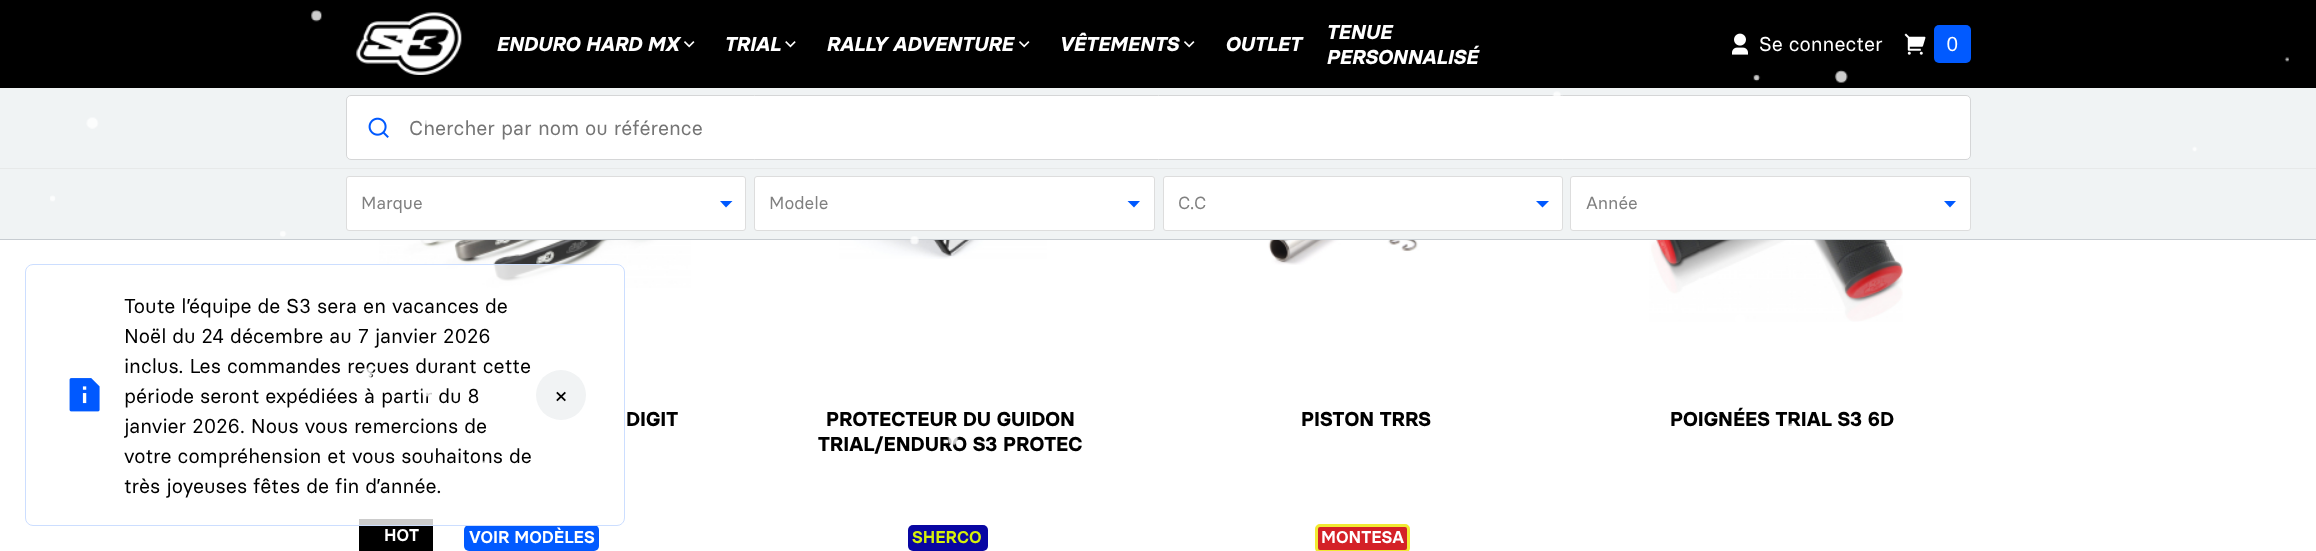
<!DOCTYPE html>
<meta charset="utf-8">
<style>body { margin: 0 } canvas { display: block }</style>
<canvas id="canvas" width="2316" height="551"></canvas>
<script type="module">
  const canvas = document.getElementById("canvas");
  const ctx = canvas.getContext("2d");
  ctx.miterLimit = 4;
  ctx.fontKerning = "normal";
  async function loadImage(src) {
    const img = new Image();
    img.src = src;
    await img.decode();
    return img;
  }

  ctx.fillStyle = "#ffffff";
  ctx.fillRect(0, 0, 2316, 551);
  ctx.fillStyle = "#000000";
  ctx.fillRect(0, 0, 2316, 88);
  ctx.drawImage(await loadImage("img2.png"), 356, 12, 106, 63);
  ctx.font = "italic bold 20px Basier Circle";
  ctx.fillStyle = "#ffffff";
  ctx.fillText("ENDURO HARD MX", 496, 51);
  ctx.drawImage(await loadImage("img3.png"), 684, 41, 11, 7);
  ctx.fillText("TRIAL", 724, 51);
  ctx.drawImage(await loadImage("img4.png"), 785, 41, 11, 7);
  ctx.fillText("RALLY ADVENTURE", 826, 51);
  ctx.drawImage(await loadImage("img3.png"), 1019, 41, 11, 7);
  ctx.fillText("VÊTEMENTS", 1059, 51);
  ctx.drawImage(await loadImage("img3.png"), 1184, 41, 11, 7);
  ctx.fillText("OUTLET", 1225, 51);
  ctx.fillText("TENUE", 1326, 39);
  ctx.fillText("PERSONNALISÉ", 1326, 64);
  ctx.drawImage(await loadImage("img5.png"), 1732, 33, 16, 22);
  ctx.font = "20px Basier Circle";
  ctx.fillText("Se connecter", 1759, 51);
  ctx.drawImage(await loadImage("img6.png"), 1904, 33, 22, 22);
  ctx.fillStyle = "#015aff";
  ctx.beginPath();
  ctx.roundRect(1934, 25, 37, 38, 5);
  ctx.fill();
  ctx.fillStyle = "#ffffff";
  ctx.fillText("0", 1946, 51);
  ctx.fillStyle = "#f0f3f4";
  ctx.fillRect(0, 88, 2316, 80);
  ctx.fillStyle = "#ffffff";
  ctx.beginPath();
  ctx.roundRect(346.5, 95.5, 1624, 64, 4.5);
  ctx.fill();
  ctx.strokeStyle = "#d5d6d7";
  ctx.stroke();
  ctx.drawImage(await loadImage("img7.png"), 368, 117, 21, 21);
  ctx.fillStyle = "#757575";
  ctx.fillText("Chercher par nom ou référence", 409, 135);
  ctx.fillStyle = "#f0f3f4";
  ctx.fillRect(0, 169, 2316, 70);
  ctx.fillStyle = "#e7e9e9";
  ctx.fillRect(0, 168, 2316, 1);
  ctx.fillStyle = "#c7ccd1";
  ctx.fillRect(0, 239, 2316, 1);
  ctx.fillStyle = "#ffffff";
  ctx.beginPath();
  ctx.roundRect(346.5, 176.5, 399, 54, 2.5);
  ctx.fill();
  ctx.strokeStyle = "#dddddd";
  ctx.stroke();
  ctx.font = "17.5px Basier Circle";
  ctx.fillStyle = "#808080";
  ctx.fillText("Marque", 361, 209);
  ctx.fillStyle = "#0059ff";
  ctx.beginPath();
  ctx.moveTo(720, 201);
  ctx.lineTo(732.5, 201);
  ctx.lineTo(726, 207.5);
  ctx.closePath();
  ctx.fill();
  ctx.fillStyle = "#ffffff";
  ctx.beginPath();
  ctx.roundRect(754.5, 176.5, 400, 54, 2.5);
  ctx.fill();
  ctx.stroke();
  ctx.fillStyle = "#808080";
  ctx.fillText("Modele", 769, 209);
  ctx.fillStyle = "#0059ff";
  ctx.beginPath();
  ctx.moveTo(1127.5, 201);
  ctx.lineTo(1140, 201);
  ctx.lineTo(1134, 207.5);
  ctx.closePath();
  ctx.fill();
  ctx.fillStyle = "#ffffff";
  ctx.beginPath();
  ctx.roundRect(1163.5, 176.5, 399, 54, 2.5);
  ctx.fill();
  ctx.stroke();
  ctx.fillStyle = "#808080";
  ctx.fillText("C.C", 1178, 209);
  ctx.fillStyle = "#0059ff";
  ctx.beginPath();
  ctx.moveTo(1536, 201);
  ctx.lineTo(1549, 201);
  ctx.lineTo(1542.5, 207.5);
  ctx.closePath();
  ctx.fill();
  ctx.fillStyle = "#ffffff";
  ctx.beginPath();
  ctx.roundRect(1570.5, 176.5, 400, 54, 2.5);
  ctx.fill();
  ctx.stroke();
  ctx.fillStyle = "#808080";
  ctx.fillText("Année", 1586, 209);
  ctx.fillStyle = "#0059ff";
  ctx.beginPath();
  ctx.moveTo(1944, 201);
  ctx.lineTo(1956, 201);
  ctx.lineTo(1950, 207.5);
  ctx.closePath();
  ctx.fill();
  ctx.drawImage(await loadImage("img9.png"), 378, 240, 314, 48);
  ctx.fillStyle = "#000000";
  ctx.fillRect(359, 519, 74, 32);
  ctx.fillStyle = "#015aff";
  ctx.beginPath();
  ctx.roundRect(464, 525, 135, 26, 5);
  ctx.fill();
  ctx.fillStyle = "rgba(255, 255, 255, 0.8)";
  ctx.beginPath();
  ctx.roundRect(25.5, 264.5, 599, 261, 7.5);
  ctx.fill();
  ctx.strokeStyle = "#ccdeff";
  ctx.stroke();
  ctx.drawImage(await loadImage("img8.png"), 69, 378, 31, 34);
  ctx.font = "20px Basier Circle";
  ctx.fillStyle = "#000000";
  ctx.fillText("Toute l’équipe de S3 sera en vacances de", 124, 313);
  ctx.fillText("Noël du 24 décembre au 7 janvier 2026", 124, 343);
  ctx.fillText("inclus. Les commandes reçues durant cette", 124, 373);
  ctx.fillText("période seront expédiées à partir du 8", 124, 403);
  ctx.fillText("janvier 2026. Nous vous remercions de", 124, 433);
  ctx.fillText("votre compréhension et vous souhaitons de", 124, 463);
  ctx.fillStyle = "#f1f3f4";
  ctx.beginPath();
  ctx.arc(561, 395, 25, 0, Math.PI * 2);
  ctx.fill();
  ctx.font = "24px Basier Circle";
  ctx.fillStyle = "#000000";
  ctx.fillText("×", 556, 404);
  ctx.font = "bold 20px Basier Circle";
  ctx.fillText("DIGIT", 626, 426);
  ctx.drawImage(await loadImage("img10.png"), 839, 240, 208, 19);
  ctx.fillText("PROTECTEUR DU GUIDON", 826, 426);
  ctx.fillText("TRIAL/ENDURO S3 PROTEC", 818, 451);
  ctx.drawImage(await loadImage("img11.png"), 1268, 240, 180, 25);
  ctx.fillText("PISTON TRRS", 1301, 426);
  ctx.drawImage(await loadImage("img12.png"), 1649, 240, 254, 82);
  ctx.fillText("POIGNÉES TRIAL S3 6D", 1670, 426);
  ctx.drawImage(await loadImage("img1.png"), 50, 10, 2239, 453);
  ctx.font = "20px Basier Circle";
  ctx.fillText("très joyeuses fêtes de fin d’année.", 124, 493);
  ctx.font = "600 17px Basier Circle";
  ctx.fillStyle = "#ffffff";
  ctx.fillText("HOT", 384, 541);
  ctx.fillText("VOIR MODÈLES", 469, 543);
  ctx.fillStyle = "#0806a2";
  ctx.beginPath();
  ctx.roundRect(908, 525, 80, 26, 5);
  ctx.fill();
  ctx.fillStyle = "#d6f109";
  ctx.fillText("SHERCO", 912, 543);
  ctx.fillStyle = "#d42127";
  ctx.beginPath();
  ctx.roundRect(1316, 525, 93, 26, 5);
  ctx.fill();
  ctx.beginPath();
  ctx.roundRect(1316.5, 525.5, 92, 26, 3.5);
  ctx.strokeStyle = "#f1ea32";
  ctx.lineWidth = 3;
  ctx.stroke();
  ctx.fillStyle = "#ffffff";
  ctx.fillText("MONTESA", 1321, 543);
</script>
